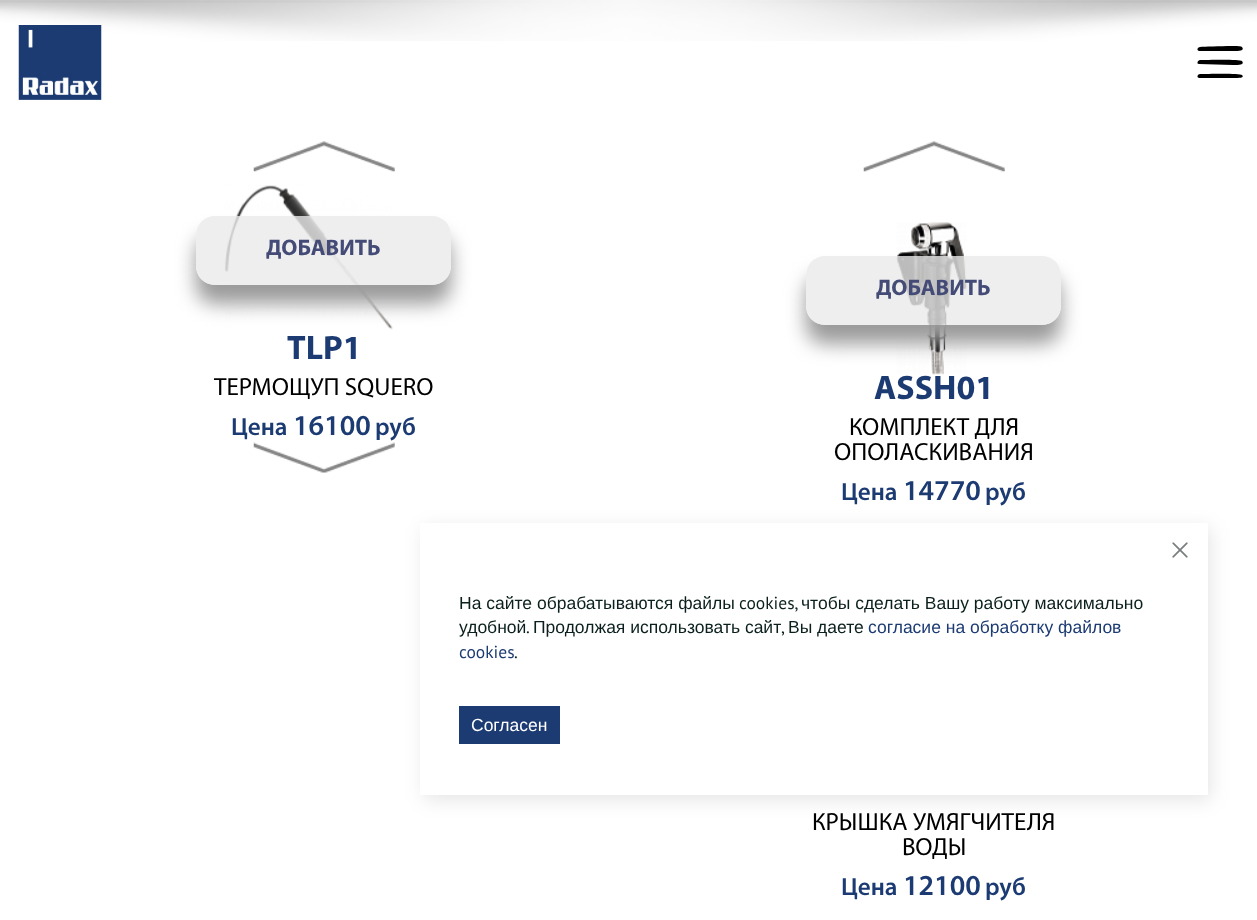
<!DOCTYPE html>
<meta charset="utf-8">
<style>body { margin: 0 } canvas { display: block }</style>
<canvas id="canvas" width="1257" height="920"></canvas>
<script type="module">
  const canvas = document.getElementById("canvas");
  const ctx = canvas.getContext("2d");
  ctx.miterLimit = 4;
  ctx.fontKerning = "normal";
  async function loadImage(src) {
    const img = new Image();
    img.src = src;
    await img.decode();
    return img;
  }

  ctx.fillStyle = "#ffffff";
  ctx.fillRect(0, 0, 1257, 920);
  ctx.drawImage(await loadImage("img2.png"), 18, 25, 84, 75);
  ctx.drawImage(await loadImage("img1.png"), 0, 0, 1257, 41);
  ctx.fillStyle = "#000000";
  ctx.beginPath();
  ctx.moveTo(1200, 47);
  ctx.bezierCurveTo(1206, 47, 1240, 45, 1242, 47);
  ctx.bezierCurveTo(1245, 51, 1239, 51, 1233, 51);
  ctx.lineTo(1199, 51);
  ctx.bezierCurveTo(1196, 50, 1198, 47, 1200, 47);
  ctx.closePath();
  ctx.moveTo(1200, 60);
  ctx.bezierCurveTo(1206, 60, 1240, 59, 1242, 61);
  ctx.bezierCurveTo(1245, 65, 1239, 65, 1233, 65);
  ctx.lineTo(1199, 64);
  ctx.bezierCurveTo(1196, 64, 1198, 60, 1200, 60);
  ctx.closePath();
  ctx.moveTo(1200, 74);
  ctx.bezierCurveTo(1206, 74, 1240, 73, 1242, 75);
  ctx.bezierCurveTo(1245, 78, 1239, 78, 1233, 78);
  ctx.lineTo(1199, 78);
  ctx.bezierCurveTo(1196, 77, 1198, 74, 1200, 74);
  ctx.closePath();
  ctx.fill();
  ctx.drawImage(await loadImage("img3.png"), 253, 141, 142, 31);
  ctx.drawImage(await loadImage("img4.png"), 224, 185, 169, 145);
  ctx.save();
  ctx.beginPath();
  ctx.moveTo(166, 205);
  ctx.lineTo(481, 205);
  ctx.lineTo(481, 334);
  ctx.lineTo(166, 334);
  ctx.closePath();
  ctx.moveTo(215, 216);
  ctx.lineTo(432, 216);
  ctx.bezierCurveTo(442.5, 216, 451, 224.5, 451, 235);
  ctx.lineTo(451, 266);
  ctx.bezierCurveTo(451, 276.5, 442.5, 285, 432, 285);
  ctx.lineTo(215, 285);
  ctx.bezierCurveTo(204.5, 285, 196, 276.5, 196, 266);
  ctx.lineTo(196, 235);
  ctx.bezierCurveTo(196, 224.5, 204.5, 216, 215, 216);
  ctx.closePath();
  ctx.clip("evenodd");
  ctx.fillStyle = "#9a9a9a";
  ctx.filter = "blur(9.5px)";
  ctx.beginPath();
  ctx.roundRect(196, 235, 255, 69, 19);
  ctx.fill();
  ctx.filter = "none";
  ctx.restore();
  ctx.fillStyle = "rgba(234, 234, 234, 0.8)";
  ctx.beginPath();
  ctx.roundRect(196, 216, 255, 69, 19);
  ctx.fill();
  ctx.font = "bold 22.5px Myriad";
  ctx.fillStyle = "#434b76";
  ctx.fillText("ДОБАВИТЬ", 266, 255);
  ctx.font = "bold 34px Myriad";
  ctx.fillStyle = "#1c3b73";
  ctx.fillText("TLP1", 287, 359);
  ctx.font = "25px Myriad";
  ctx.fillStyle = "#000000";
  ctx.fillText("ТЕРМОЩУП SQUERO", 214, 395);
  ctx.font = "600 25px Myriad";
  ctx.fillStyle = "#1c3b73";
  ctx.fillText("Цена", 231, 435);
  ctx.font = "600 29px Myriad";
  ctx.fillText("16100", 293, 435);
  ctx.font = "600 25px Myriad";
  ctx.fillText("руб", 375, 435);
  ctx.drawImage(await loadImage("img5.png"), 253, 442, 142, 31);
  ctx.drawImage(await loadImage("img6.png"), 863, 141, 142, 31);
  ctx.drawImage(await loadImage("img7.png"), 896, 222, 71, 153);
  ctx.save();
  ctx.beginPath();
  ctx.moveTo(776, 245);
  ctx.lineTo(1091, 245);
  ctx.lineTo(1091, 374);
  ctx.lineTo(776, 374);
  ctx.closePath();
  ctx.moveTo(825, 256);
  ctx.lineTo(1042, 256);
  ctx.bezierCurveTo(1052.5, 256, 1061, 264.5, 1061, 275);
  ctx.lineTo(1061, 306);
  ctx.bezierCurveTo(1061, 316.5, 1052.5, 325, 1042, 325);
  ctx.lineTo(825, 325);
  ctx.bezierCurveTo(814.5, 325, 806, 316.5, 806, 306);
  ctx.lineTo(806, 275);
  ctx.bezierCurveTo(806, 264.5, 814.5, 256, 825, 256);
  ctx.closePath();
  ctx.clip("evenodd");
  ctx.fillStyle = "#9a9a9a";
  ctx.filter = "blur(9.5px)";
  ctx.beginPath();
  ctx.roundRect(806, 275, 255, 69, 19);
  ctx.fill();
  ctx.filter = "none";
  ctx.restore();
  ctx.fillStyle = "rgba(234, 234, 234, 0.8)";
  ctx.beginPath();
  ctx.roundRect(806, 256, 255, 69, 19);
  ctx.fill();
  ctx.font = "bold 22.5px Myriad";
  ctx.fillStyle = "#434b76";
  ctx.fillText("ДОБАВИТЬ", 876, 295);
  ctx.font = "bold 34px Myriad";
  ctx.fillStyle = "#1c3b73";
  ctx.fillText("ASSH01", 874, 399);
  ctx.font = "25px Myriad";
  ctx.fillStyle = "#000000";
  ctx.fillText("КОМПЛЕКТ ДЛЯ", 849, 435);
  ctx.fillText("ОПОЛАСКИВАНИЯ", 834, 460);
  ctx.font = "600 25px Myriad";
  ctx.fillStyle = "#1c3b73";
  ctx.fillText("Цена", 841, 500);
  ctx.font = "600 29px Myriad";
  ctx.fillText("14770", 903, 500);
  ctx.font = "600 25px Myriad";
  ctx.fillText("руб", 985, 500);
  ctx.font = "25px Myriad";
  ctx.fillStyle = "#000000";
  ctx.fillText("КРЫШКА УМЯГЧИТЕЛЯ", 812, 830);
  ctx.fillText("ВОДЫ", 902, 855);
  ctx.font = "600 25px Myriad";
  ctx.fillStyle = "#1c3b73";
  ctx.fillText("Цена", 841, 895);
  ctx.font = "600 29px Myriad";
  ctx.fillText("12100", 903, 895);
  ctx.font = "600 25px Myriad";
  ctx.fillText("руб", 985, 895);
  ctx.fillStyle = "rgba(0, 0, 0, 0.1)";
  ctx.filter = "blur(9.5px)";
  ctx.beginPath();
  ctx.rect(424, 528, 787, 272);
  ctx.fill();
  ctx.filter = "none";
  ctx.fillStyle = "#ffffff";
  ctx.fillRect(420, 523, 788, 272);
  ctx.drawImage(await loadImage("img8.png"), 1172, 542, 16, 16);
  ctx.font = "17.5px Liberation Sans";
  ctx.fillStyle = "#0b201d";
  ctx.fillText("На сайте обрабатываются файлы", 459, 609);
  ctx.font = "17.5px PT Sans";
  ctx.fillText("cookies,", 739, 609);
  ctx.font = "17.5px Liberation Sans";
  ctx.fillText("чтобы сделать Вашу работу максимально", 801, 609);
  ctx.fillText("удобной", 459, 633);
  ctx.font = "17.5px PT Sans";
  ctx.fillText(".", 526, 633);
  ctx.font = "17.5px Liberation Sans";
  ctx.fillText("Продолжая использовать сайт", 533, 633);
  ctx.font = "17.5px PT Sans";
  ctx.fillText(",", 781, 633);
  ctx.font = "17.5px Liberation Sans";
  ctx.fillText("Вы даете", 788, 633);
  ctx.fillStyle = "#1c3b73";
  ctx.fillText("согласие на обработку файлов", 868, 633);
  ctx.font = "17.5px PT Sans";
  ctx.fillText("cookies", 459, 658);
  ctx.fillStyle = "#0b201d";
  ctx.fillText(".", 514, 658);
  ctx.fillStyle = "#1c3b73";
  ctx.fillRect(459, 706, 101, 38);
  ctx.font = "17.5px Liberation Sans";
  ctx.fillStyle = "#ffffff";
  ctx.fillText("Согласен", 471, 731);
</script>
